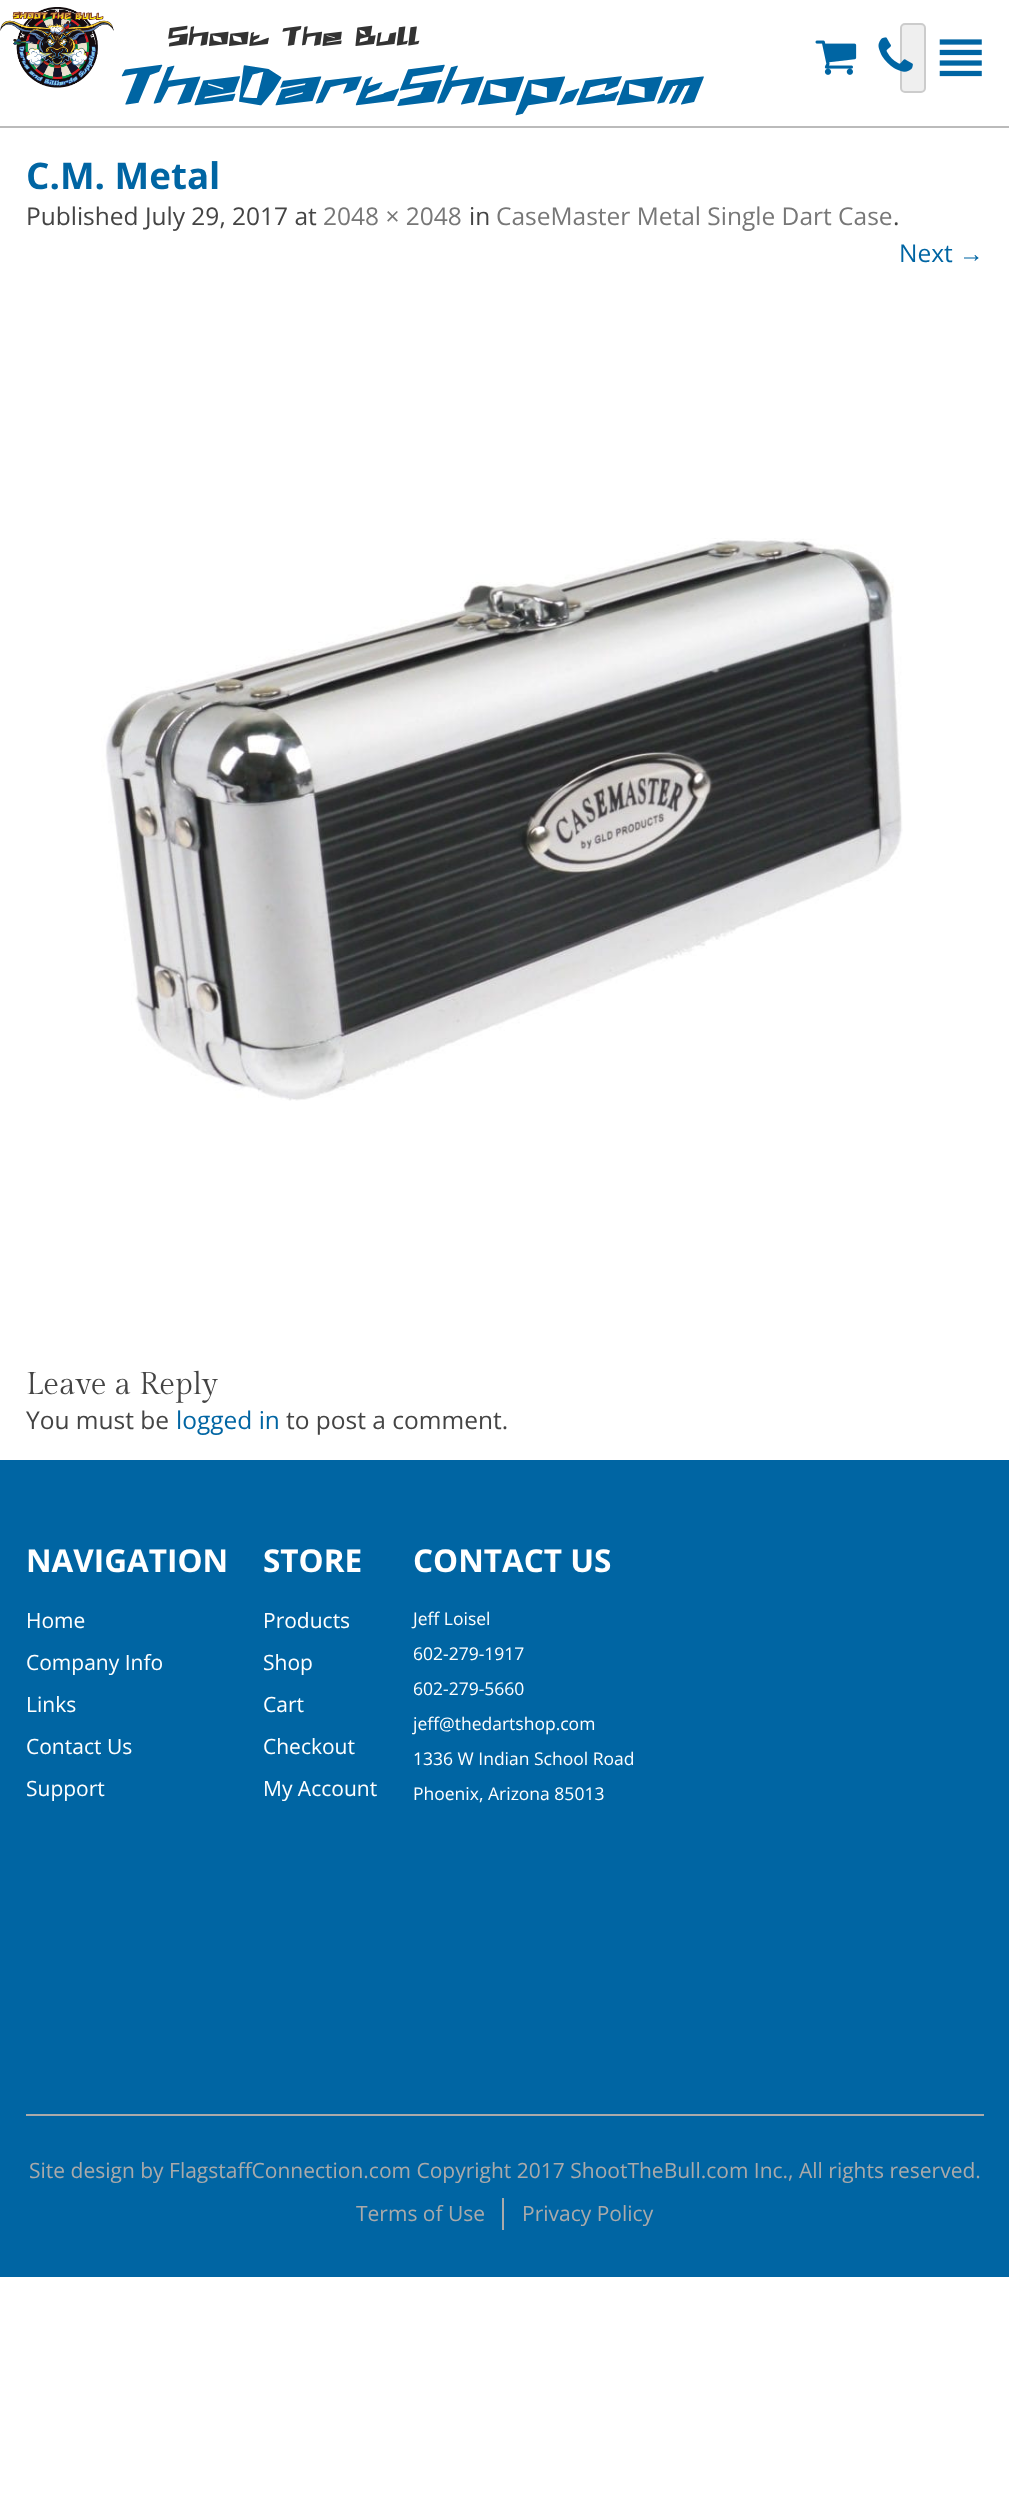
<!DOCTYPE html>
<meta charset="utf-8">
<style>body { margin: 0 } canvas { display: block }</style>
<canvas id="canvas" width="1009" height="2505"></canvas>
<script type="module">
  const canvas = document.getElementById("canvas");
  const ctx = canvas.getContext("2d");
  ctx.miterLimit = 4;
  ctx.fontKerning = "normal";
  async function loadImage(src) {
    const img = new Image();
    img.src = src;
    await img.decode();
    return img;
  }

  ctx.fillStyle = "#ffffff";
  ctx.fillRect(0, 0, 1009, 2505);
  ctx.fillStyle = "#bbbbbb";
  ctx.fillRect(0, 126, 1009, 2);
  ctx.drawImage(await loadImage("img1.png"), 0, 7, 114, 81);
  ctx.font = "26.25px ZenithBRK";
  ctx.fillStyle = "#333333";
  ctx.fillText("Shoot The Bull", 168, 46);
  ctx.font = "italic 52.5px ZenithBRK";
  ctx.fillStyle = "#0065a3";
  ctx.fillText("TheDartShop.com", 114, 105);
  ctx.drawImage(await loadImage("img2.png"), 815, 40, 42, 35);
  ctx.fillStyle = "#efefef";
  ctx.beginPath();
  ctx.roundRect(901, 24, 24, 68, 4);
  ctx.fill();
  ctx.strokeStyle = "#cccccc";
  ctx.lineWidth = 2;
  ctx.stroke();
  ctx.drawImage(await loadImage("img3.png"), 878, 37, 35, 35);
  ctx.drawImage(await loadImage("img4.png"), 939, 39, 43, 38);
  ctx.font = "bold 36.75px Open Sans";
  ctx.fillStyle = "#0065a3";
  ctx.fillText("C.M. Metal", 26, 189);
  ctx.font = "24.5px Open Sans";
  ctx.fillStyle = "#444444";
  ctx.fillText("Published July 29, 2017 at", 26, 225);
  ctx.fillStyle = "#777777";
  ctx.fillText("2048 × 2048", 323, 225);
  ctx.fillStyle = "#444444";
  ctx.fillText("in", 469, 225);
  ctx.fillStyle = "#777777";
  ctx.fillText("CaseMaster Metal Single Dart Case", 496, 225);
  ctx.fillStyle = "#444444";
  ctx.fillText(".", 893, 225);
  ctx.fillStyle = "#0065a3";
  ctx.fillText("Next", 899, 262);
  ctx.font = "24.5px Liberation Sans";
  ctx.fillText("→", 959, 262);
  ctx.drawImage(await loadImage("img5.png"), 101, 538, 802, 563);
  ctx.font = "31.5px Gilda Display";
  ctx.fillStyle = "#444444";
  ctx.fillText("Leave a Reply", 26, 1394);
  ctx.font = "24.5px Open Sans";
  ctx.fillText("You must be", 26, 1429);
  ctx.fillStyle = "#0065a3";
  ctx.fillText("logged in", 176, 1429);
  ctx.fillStyle = "#444444";
  ctx.fillText("to post a comment.", 286, 1429);
  ctx.fillStyle = "#0065a3";
  ctx.fillRect(0, 1460, 1009, 817);
  ctx.font = "bold 31.5px Open Sans";
  ctx.fillStyle = "#ffffff";
  ctx.fillText("NAVIGATION", 26, 1572);
  ctx.font = "21px Open Sans";
  ctx.fillText("Home", 26, 1628);
  ctx.fillText("Company Info", 26, 1670);
  ctx.fillText("Links", 26, 1712);
  ctx.fillText("Contact Us", 26, 1754);
  ctx.fillText("Support", 26, 1796);
  ctx.font = "bold 31.5px Open Sans";
  ctx.fillText("STORE", 263, 1572);
  ctx.font = "21px Open Sans";
  ctx.fillText("Products", 263, 1628);
  ctx.fillText("Shop", 263, 1670);
  ctx.fillText("Cart", 263, 1712);
  ctx.fillText("Checkout", 263, 1754);
  ctx.fillText("My Account", 263, 1796);
  ctx.font = "bold 31.5px Open Sans";
  ctx.fillText("CONTACT US", 413, 1572);
  ctx.font = "17.5px Open Sans";
  ctx.fillText("Jeff Loisel", 413, 1625);
  ctx.fillText("602-279-1917", 413, 1660);
  ctx.fillText("602-279-5660", 413, 1695);
  ctx.fillText("jeff@thedartshop.com", 413, 1730);
  ctx.fillText("1336 W Indian School Road", 413, 1765);
  ctx.fillText("Phoenix, Arizona 85013", 413, 1800);
  ctx.fillStyle = "#aaaaaa";
  ctx.fillRect(26, 2114, 958, 2);
  ctx.font = "21px Open Sans";
  ctx.fillText("Site design by FlagstaffConnection.com Copyright 2017 ShootTheBull.com Inc., All rights reserved.", 29, 2178);
  ctx.fillText("Terms of Use", 356, 2221);
  ctx.fillRect(502, 2198, 2, 32);
  ctx.fillText("Privacy Policy", 522, 2221);
</script>
